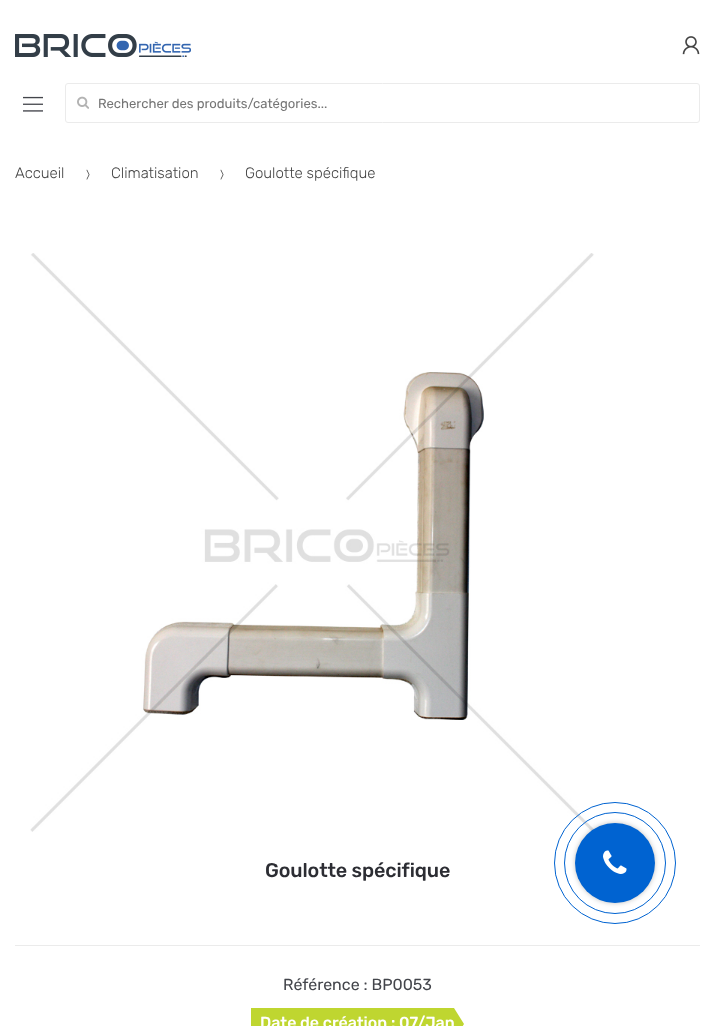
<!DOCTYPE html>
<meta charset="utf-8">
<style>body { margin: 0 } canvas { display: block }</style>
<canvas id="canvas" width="715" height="1026"></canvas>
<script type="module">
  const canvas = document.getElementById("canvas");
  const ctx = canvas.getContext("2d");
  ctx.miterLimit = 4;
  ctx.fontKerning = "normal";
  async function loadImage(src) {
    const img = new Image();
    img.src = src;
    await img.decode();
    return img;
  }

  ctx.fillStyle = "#ffffff";
  ctx.fillRect(0, 0, 715, 1026);
  ctx.drawImage(await loadImage("img1.png"), 15, 34, 176, 23);
  ctx.drawImage(await loadImage("img2.png"), 682, 36, 18, 19);
  ctx.drawImage(await loadImage("img3.png"), 23, 96, 20, 16);
  ctx.beginPath();
  ctx.roundRect(65.5, 83.5, 634, 39, 2.5);
  ctx.strokeStyle = "#ebebeb";
  ctx.stroke();
  ctx.drawImage(await loadImage("img4.png"), 77, 96, 12, 13);
  ctx.font = "13.1px Rubik";
  ctx.fillStyle = "#757575";
  ctx.fillText("Rechercher des produits/catégories...", 98, 108);
  ctx.font = "300 15px Rubik";
  ctx.fillStyle = "#444444";
  ctx.fillText("Accueil", 15, 178);
  ctx.drawImage(await loadImage("img5.png"), 86, 169, 4, 11);
  ctx.fillText("Climatisation", 111, 178);
  ctx.drawImage(await loadImage("img5.png"), 220, 169, 4, 11);
  ctx.fillText("Goulotte spécifique", 245, 178);
  ctx.drawImage(await loadImage("img6.png"), 30, 253, 565, 579);
  ctx.fillStyle = "#ebebeb";
  ctx.fillRect(15, 945, 685, 1);
  ctx.letterSpacing = "-0.1px";
  ctx.font = "500 19.75px Rubik";
  ctx.fillStyle = "#2c2d33";
  ctx.fillText("Goulotte spécifique", 265, 877);
  ctx.letterSpacing = "0px";
  ctx.font = "16px Rubik";
  ctx.fillStyle = "#43454b";
  ctx.fillText("Référence : BP0053", 283, 990);
  ctx.fillStyle = "#bfd630";
  ctx.fillRect(251, 1008, 203, 18);
  ctx.beginPath();
  ctx.moveTo(454, 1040);
  ctx.lineTo(454, 1008);
  ctx.lineTo(464, 1024);
  ctx.closePath();
  ctx.fill();
  ctx.font = "500 16px Rubik";
  ctx.fillStyle = "#ffffff";
  ctx.fillText("Date de création : 07/Jan", 260, 1028);
  ctx.beginPath();
  ctx.arc(615, 863, 60.5, 0, Math.PI * 2);
  ctx.strokeStyle = "#0063d1";
  ctx.stroke();
  ctx.beginPath();
  ctx.arc(615, 863, 50.5, 0, Math.PI * 2);
  ctx.stroke();
  ctx.fillStyle = "rgba(0, 0, 0, 0.25)";
  ctx.filter = "blur(2.5px)";
  ctx.beginPath();
  ctx.roundRect(575, 823, 80, 80, 40);
  ctx.fill();
  ctx.filter = "none";
  ctx.fillStyle = "#0063d1";
  ctx.beginPath();
  ctx.arc(615, 863, 40, 0, Math.PI * 2);
  ctx.fill();
  ctx.drawImage(await loadImage("img7.png"), 603, 850, 24, 24);
</script>
